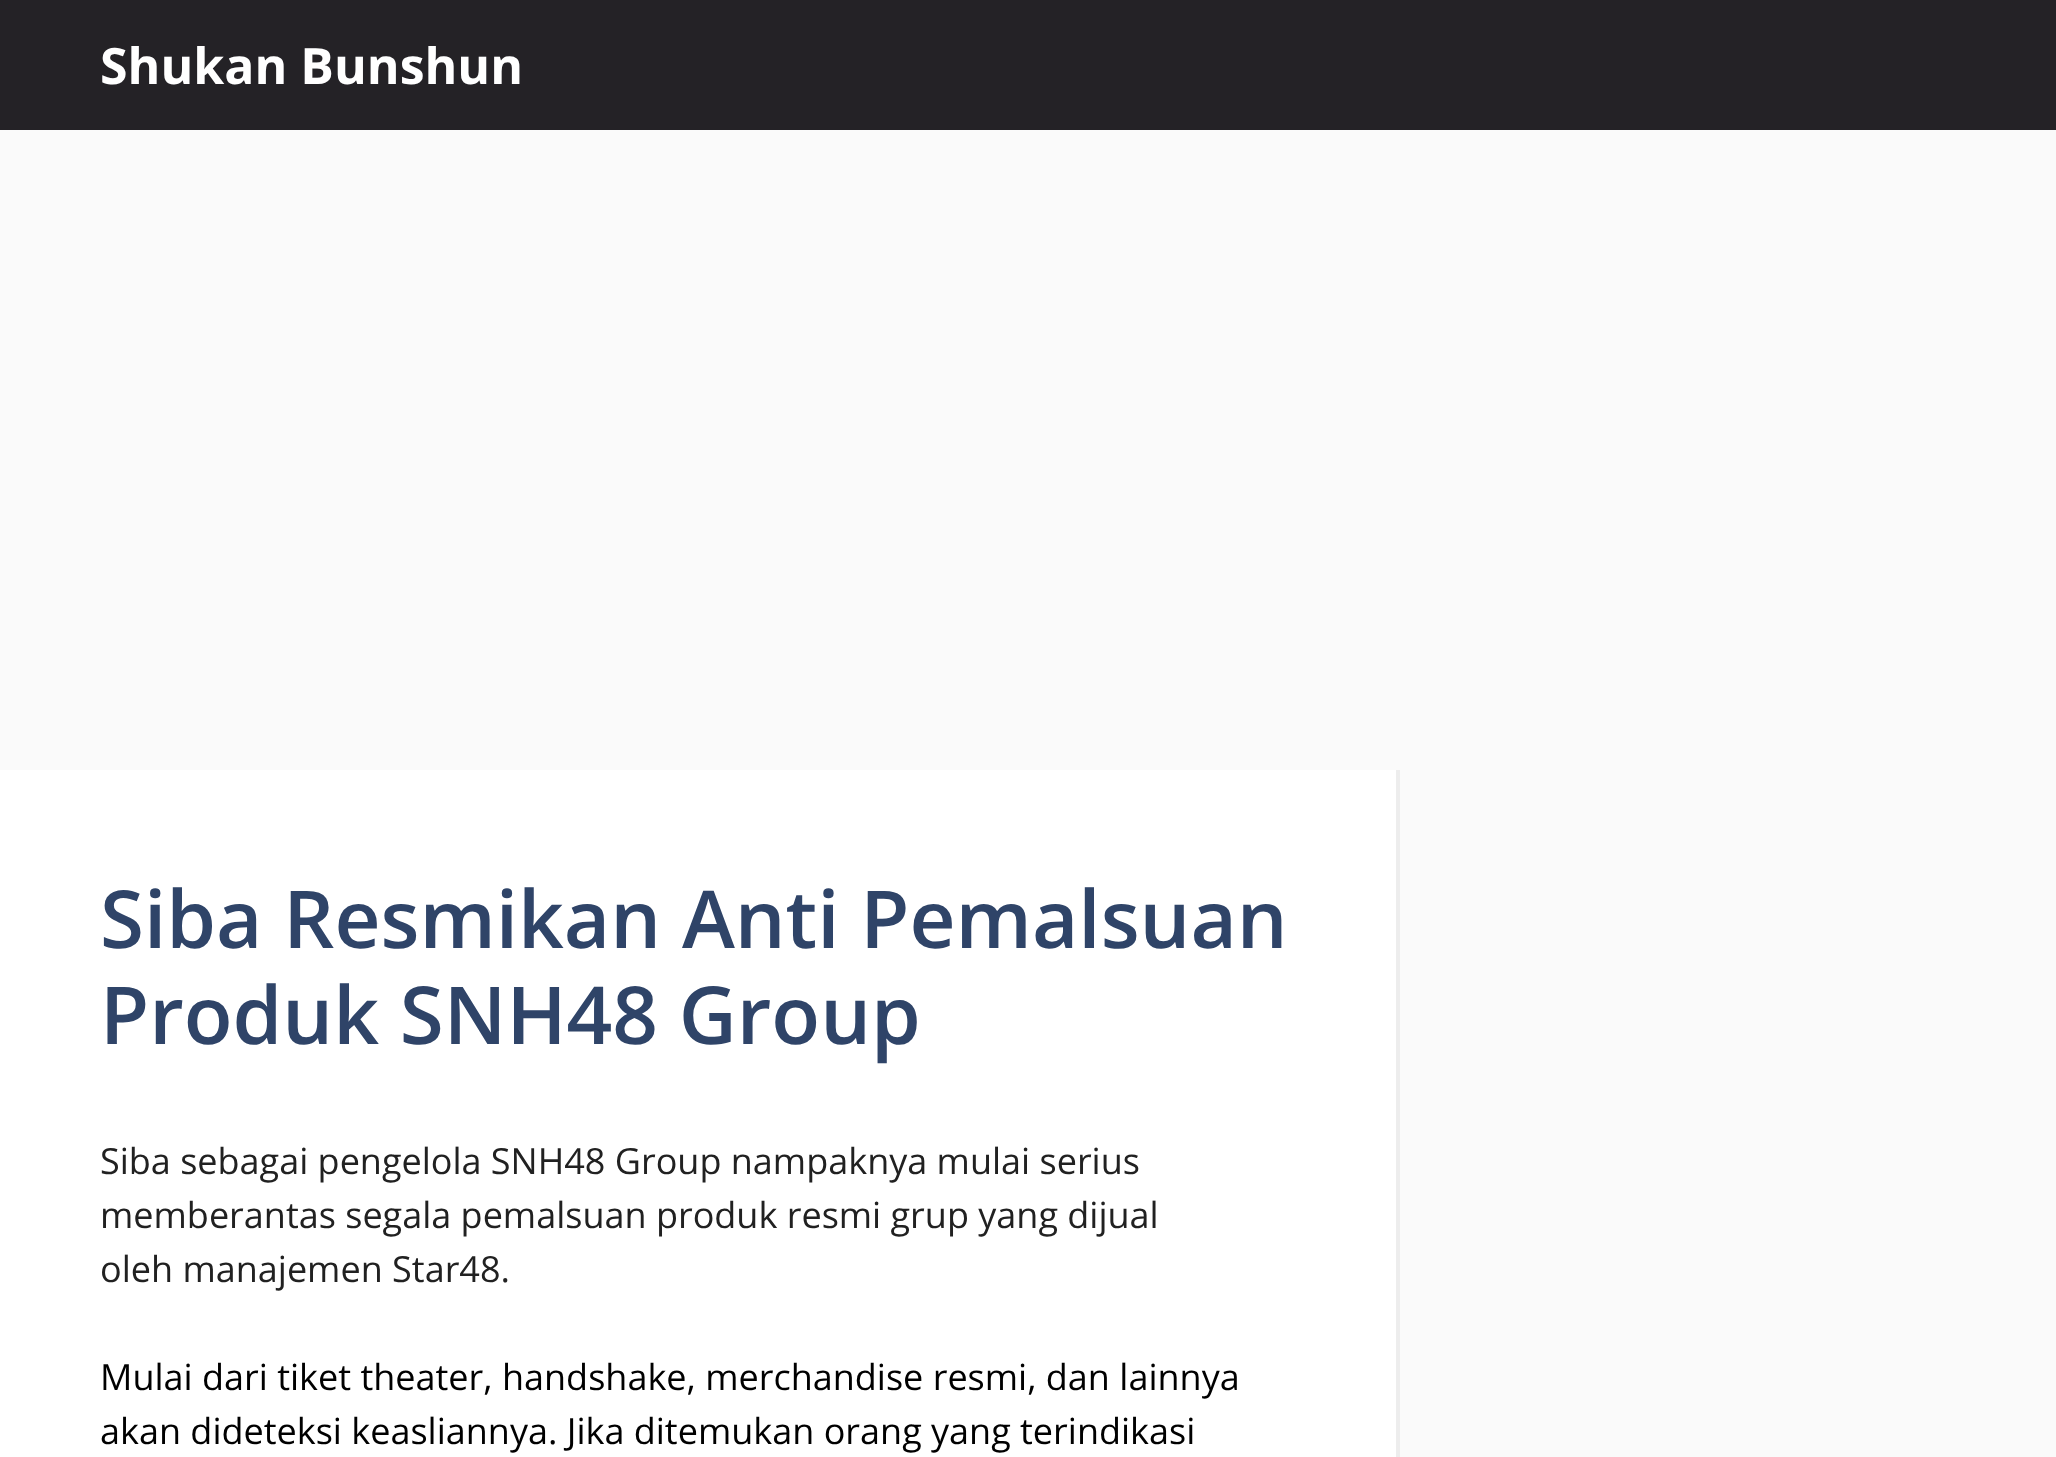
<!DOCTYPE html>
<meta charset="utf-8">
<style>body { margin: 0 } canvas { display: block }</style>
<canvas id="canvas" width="2056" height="1457"></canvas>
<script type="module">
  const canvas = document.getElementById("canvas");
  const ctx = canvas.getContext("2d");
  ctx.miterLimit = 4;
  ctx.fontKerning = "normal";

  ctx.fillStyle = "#fafafa";
  ctx.fillRect(0, 0, 2056, 1457);
  ctx.fillStyle = "#242226";
  ctx.fillRect(0, 0, 2056, 130);
  ctx.font = "bold 50px Open Sans";
  ctx.fillStyle = "#ffffff";
  ctx.fillText("Shukan Bunshun", 100, 84);
  ctx.fillRect(0, 770, 1396, 687);
  ctx.fillStyle = "#ededed";
  ctx.beginPath();
  ctx.moveTo(1400, 770);
  ctx.lineTo(1400, 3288);
  ctx.lineTo(1396, 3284);
  ctx.lineTo(1396, 770);
  ctx.closePath();
  ctx.fill();
  ctx.font = "600 80px Open Sans";
  ctx.fillStyle = "#2f4468";
  ctx.fillText("Siba Resmikan Anti Pemalsuan", 100, 948);
  ctx.fillText("Produk SNH48 Group", 100, 1044);
  ctx.font = "36px Open Sans";
  ctx.fillStyle = "#212121";
  ctx.fillText("Siba sebagai pengelola SNH48 Group nampaknya mulai serius", 100, 1174);
  ctx.fillText("memberantas segala pemalsuan produk resmi grup yang dijual", 100, 1228);
  ctx.fillText("oleh manajemen Star48.", 100, 1282);
  ctx.fillStyle = "#000000";
  ctx.fillText("Mulai dari tiket theater, handshake, merchandise resmi, dan lainnya", 100, 1390);
  ctx.fillText("akan dideteksi keasliannya. Jika ditemukan orang yang terindikasi", 100, 1444);
</script>
